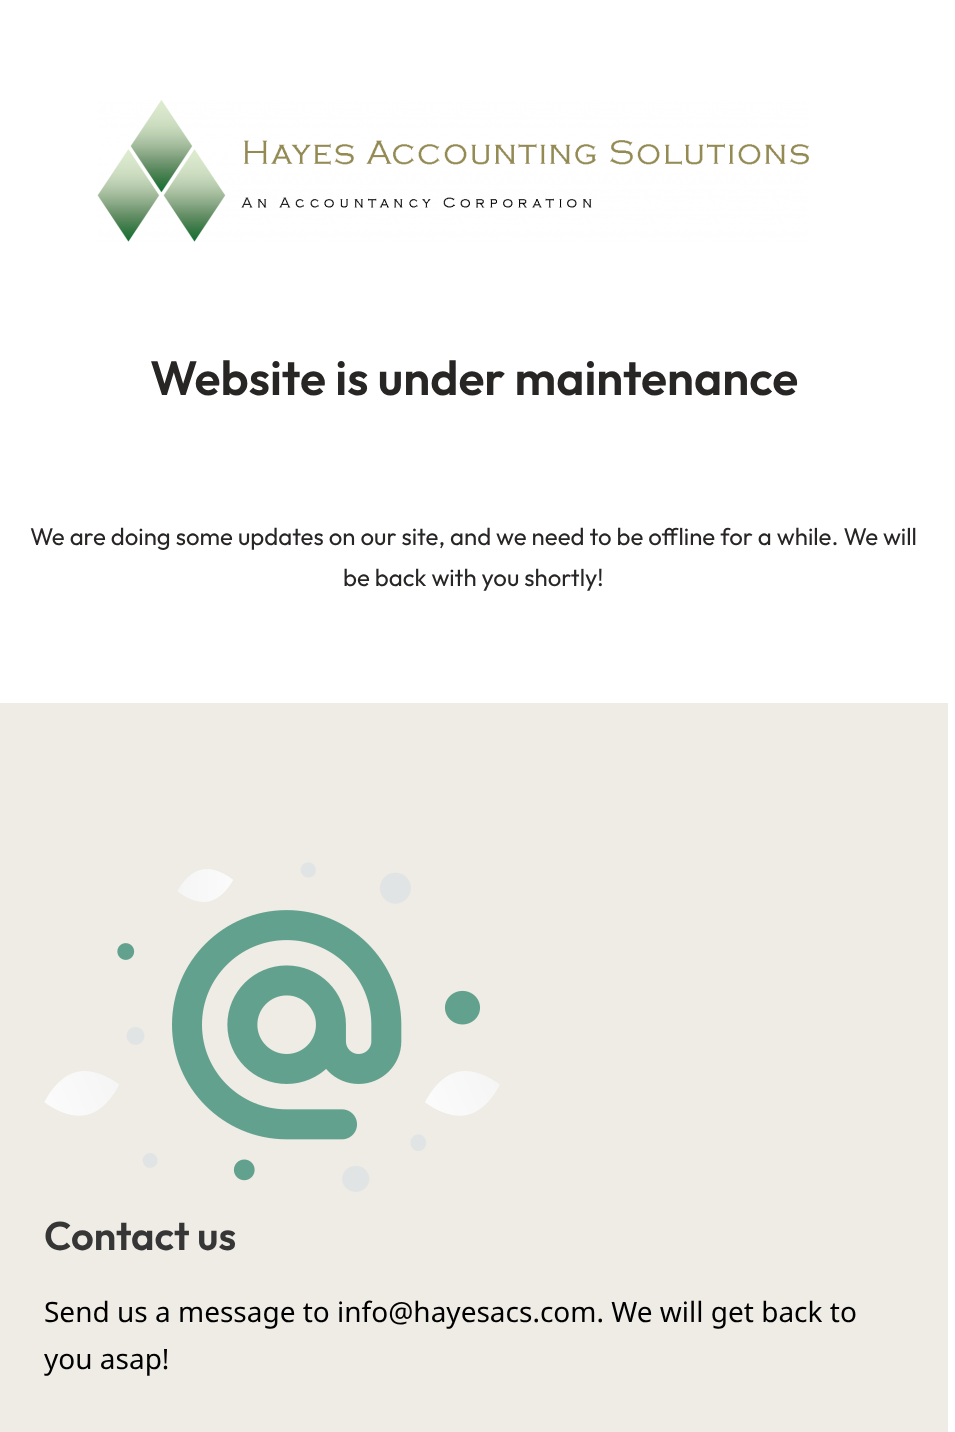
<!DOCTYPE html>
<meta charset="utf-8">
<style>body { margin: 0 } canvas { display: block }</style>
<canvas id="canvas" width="955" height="1432"></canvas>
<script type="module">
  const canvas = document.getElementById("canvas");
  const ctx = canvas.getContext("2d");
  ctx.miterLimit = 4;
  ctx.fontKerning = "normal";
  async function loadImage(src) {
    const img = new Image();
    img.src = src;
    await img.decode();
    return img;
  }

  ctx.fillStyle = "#ffffff";
  ctx.fillRect(0, 0, 955, 1432);
  ctx.drawImage(await loadImage("img1.png"), 97, 100, 712, 142);
  ctx.font = "600 48px Outfit";
  ctx.fillStyle = "#282525";
  ctx.fillText("Website is under maintenance", 150, 395);
  ctx.font = "24px Outfit";
  ctx.fillText("We are doing some updates on our site, and we need to be offline for a while. We will", 30, 545);
  ctx.fillText("be back with you shortly!", 343, 586);
  ctx.fillStyle = "#efece5";
  ctx.fillRect(0, 703, 948, 729);
  ctx.drawImage(await loadImage("img2.png"), 44, 862, 456, 330);
  ctx.font = "600 40px Outfit";
  ctx.fillStyle = "#363636";
  ctx.fillText("Contact us", 44, 1250);
  ctx.font = "28px Noto Sans";
  ctx.fillStyle = "#000000";
  ctx.fillText("Send us a message to info@hayesacs.com. We will get back to", 44, 1322);
  ctx.fillText("you asap!", 44, 1369);
</script>
